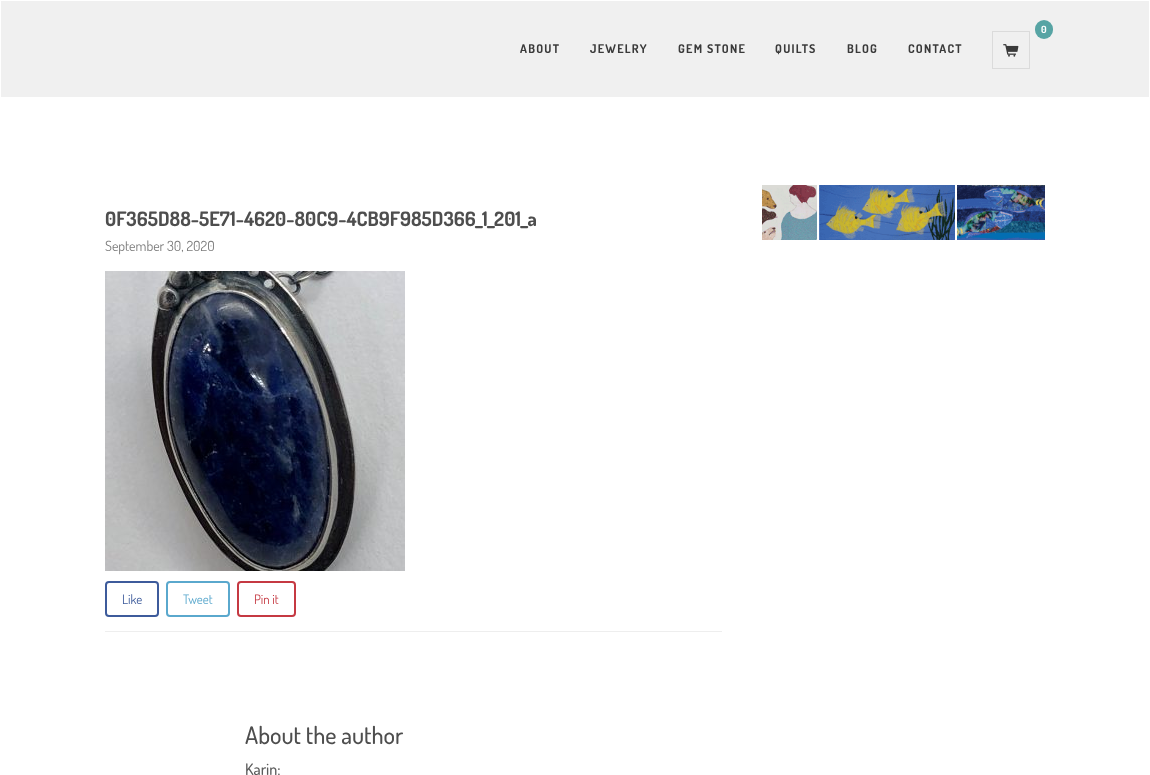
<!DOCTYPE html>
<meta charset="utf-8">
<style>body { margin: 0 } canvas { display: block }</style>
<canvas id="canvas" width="1150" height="775"></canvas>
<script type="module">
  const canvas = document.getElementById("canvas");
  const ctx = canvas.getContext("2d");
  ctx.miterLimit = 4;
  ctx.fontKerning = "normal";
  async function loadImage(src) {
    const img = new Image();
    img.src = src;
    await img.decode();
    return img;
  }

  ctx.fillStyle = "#ffffff";
  ctx.fillRect(0, 0, 1150, 775);
  ctx.fillStyle = "#f0f0f0";
  ctx.fillRect(1, 1, 1148, 96);
  ctx.fillStyle = "#57a4a4";
  ctx.beginPath();
  ctx.roundRect(1035, 20, 18, 19, 9);
  ctx.fill();
  ctx.letterSpacing = "1.25px";
  ctx.font = "bold 10px Dosis";
  ctx.fillStyle = "#ffffff";
  ctx.fillText("0", 1041, 33);
  ctx.strokeStyle = "#dbdbdb";
  ctx.strokeRect(992.5, 31.5, 37, 37);
  ctx.drawImage(await loadImage("img1.png"), 1003, 44, 16, 13);
  ctx.font = "bold 12px Dosis";
  ctx.fillStyle = "#3a3a3a";
  ctx.fillText("ABOUT", 520, 53);
  ctx.fillText("JEWELRY", 590, 53);
  ctx.fillText("GEM STONE", 678, 53);
  ctx.fillText("QUILTS", 775, 53);
  ctx.fillText("BLOG", 847, 53);
  ctx.fillText("CONTACT", 908, 53);
  ctx.letterSpacing = "0px";
  ctx.font = "bold 20px Dosis";
  ctx.fillStyle = "#4e4e4e";
  ctx.fillText("0F365D88-5E71-4620-80C9-4CB9F985D366_1_201_a", 105, 226);
  ctx.font = "14px Dosis";
  ctx.fillStyle = "#7c7c7c";
  ctx.fillText("September 30, 2020", 105, 251);
  ctx.drawImage(await loadImage("img2.png"), 105, 271, 300, 300);
  ctx.beginPath();
  ctx.roundRect(106, 582, 52, 34, 3);
  ctx.strokeStyle = "#3d5b9b";
  ctx.lineWidth = 2;
  ctx.stroke();
  ctx.font = "13px Dosis";
  ctx.fillStyle = "#3d5b9b";
  ctx.fillText("Like", 122, 604);
  ctx.beginPath();
  ctx.roundRect(167, 582, 62, 34, 3);
  ctx.strokeStyle = "#5aa8cd";
  ctx.stroke();
  ctx.fillStyle = "#5aa8cd";
  ctx.fillText("Tweet", 183, 604);
  ctx.beginPath();
  ctx.roundRect(238, 582, 57, 34, 3);
  ctx.strokeStyle = "#c53942";
  ctx.stroke();
  ctx.fillStyle = "#c53942";
  ctx.fillText("Pin it", 254, 604);
  ctx.fillStyle = "#eeeeee";
  ctx.fillRect(105, 631, 617, 1);
  ctx.font = "500 24px Dosis";
  ctx.fillStyle = "#4e4e4e";
  ctx.fillText("About the author", 245, 744);
  ctx.font = "500 16px Dosis";
  ctx.fillStyle = "#5c5c5c";
  ctx.fillText("Karin:", 245, 775);
  ctx.drawImage(await loadImage("img3.png"), 762, 185, 283, 55);
</script>
